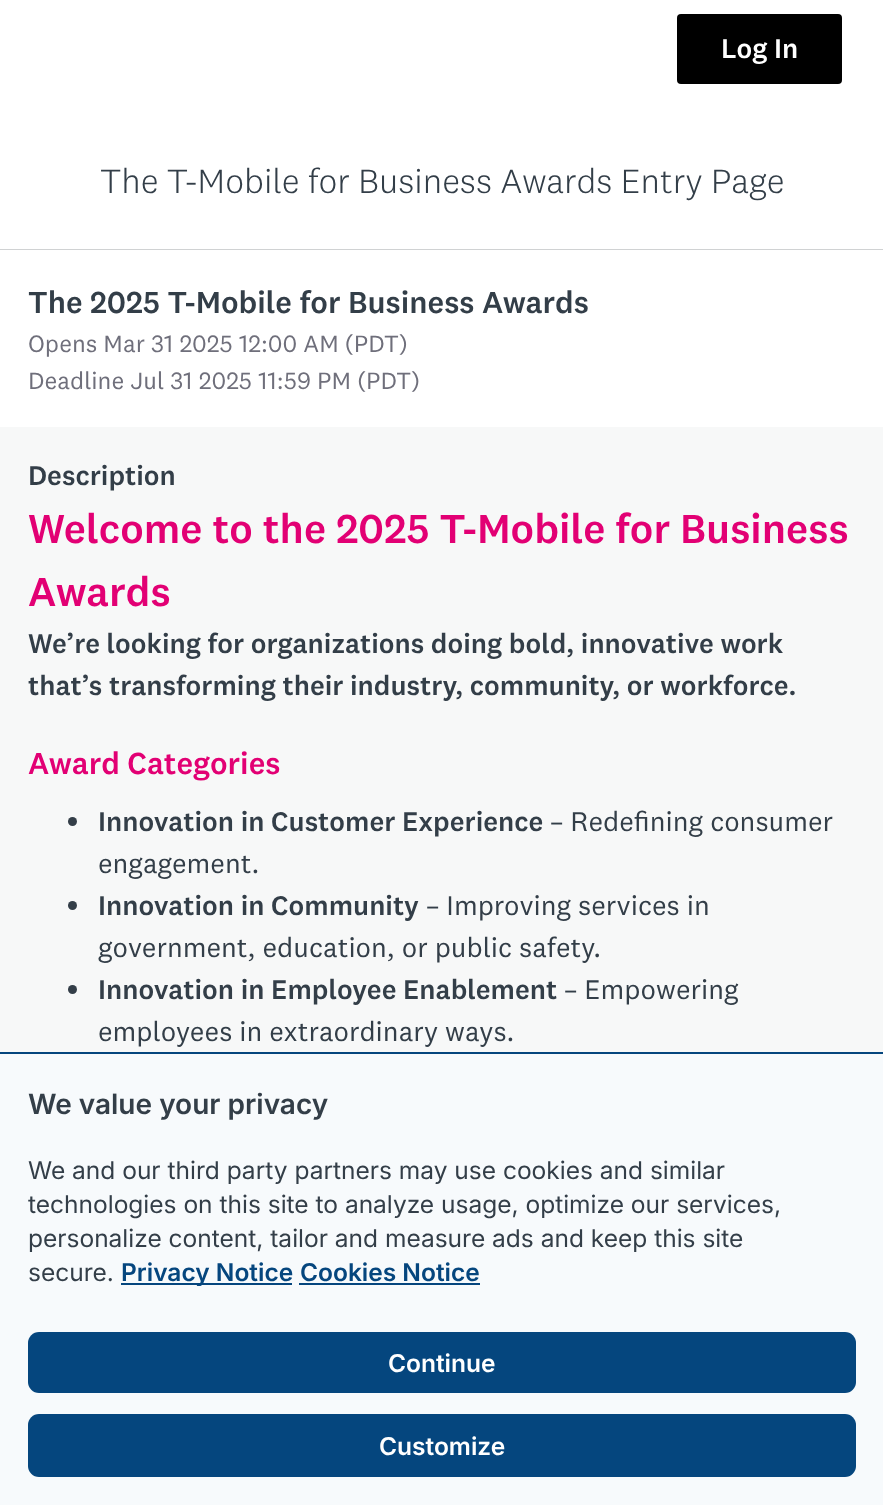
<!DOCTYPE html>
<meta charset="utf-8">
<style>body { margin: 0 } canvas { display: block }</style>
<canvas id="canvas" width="883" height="1505"></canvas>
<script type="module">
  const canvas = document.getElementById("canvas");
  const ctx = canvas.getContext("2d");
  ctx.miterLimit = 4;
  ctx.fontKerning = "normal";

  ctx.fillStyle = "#f7f8f8";
  ctx.fillRect(0, 0, 883, 1505);
  ctx.fillStyle = "#ffffff";
  ctx.fillRect(0, 0, 883, 249);
  ctx.fillStyle = "#000000";
  ctx.beginPath();
  ctx.roundRect(677, 14, 165, 70, 4);
  ctx.fill();
  ctx.font = "500 28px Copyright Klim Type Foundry";
  ctx.fillStyle = "#ffffff";
  ctx.fillText("Log In", 721, 58);
  ctx.fillStyle = "#d0d2d3";
  ctx.fillRect(0, 249, 883, 1);
  ctx.font = "300 35px Copyright Klim Type Foundry";
  ctx.fillStyle = "#333e48";
  ctx.fillText("The T-Mobile for Business Awards Entry Page", 100, 193);
  ctx.fillStyle = "#ffffff";
  ctx.fillRect(0, 250, 883, 177);
  ctx.font = "500 31.5px Copyright Klim Type Foundry";
  ctx.fillStyle = "#333e48";
  ctx.fillText("The 2025 T-Mobile for Business Awards", 28, 313);
  ctx.font = "24.5px Copyright Klim Type Foundry";
  ctx.fillStyle = "#6f6f7b";
  ctx.fillText("Opens Mar 31 2025 12:00 AM (PDT)", 28, 352);
  ctx.fillText("Deadline Jul 31 2025 11:59 PM (PDT)", 28, 389);
  ctx.font = "500 28px Copyright Klim Type Foundry";
  ctx.fillStyle = "#333e48";
  ctx.fillText("Description", 28, 485);
  ctx.font = "500 42px Copyright Klim Type Foundry";
  ctx.fillStyle = "#e20074";
  ctx.fillText("Welcome to the 2025 T-Mobile for Business", 28, 543);
  ctx.fillText("Awards", 28, 606);
  ctx.font = "500 28px Copyright Klim Type Foundry";
  ctx.fillStyle = "#333e48";
  ctx.fillText("We’re looking for organizations doing bold, innovative work", 28, 653);
  ctx.fillText("that’s transforming their industry, community, or workforce.", 28, 695);
  ctx.font = "500 31.5px Copyright Klim Type Foundry";
  ctx.fillStyle = "#e20074";
  ctx.fillText("Award Categories", 28, 774);
  ctx.fillStyle = "#333e48";
  ctx.beginPath();
  ctx.arc(72.5, 821.5, 4.5, 0, Math.PI * 2);
  ctx.fill();
  ctx.font = "500 28px Copyright Klim Type Foundry";
  ctx.fillText("Innovation in Customer Experience", 98, 831);
  ctx.font = "28px Copyright Klim Type Foundry";
  ctx.fillText("– Redefining consumer", 550, 831);
  ctx.fillText("engagement.", 98, 873);
  ctx.beginPath();
  ctx.arc(72.5, 905.5, 4.5, 0, Math.PI * 2);
  ctx.fill();
  ctx.font = "500 28px Copyright Klim Type Foundry";
  ctx.fillText("Innovation in Community", 98, 915);
  ctx.font = "28px Copyright Klim Type Foundry";
  ctx.fillText("– Improving services in", 426, 915);
  ctx.fillText("government, education, or public safety.", 98, 957);
  ctx.beginPath();
  ctx.arc(72.5, 989.5, 4.5, 0, Math.PI * 2);
  ctx.fill();
  ctx.font = "500 28px Copyright Klim Type Foundry";
  ctx.fillText("Innovation in Employee Enablement", 98, 999);
  ctx.font = "28px Copyright Klim Type Foundry";
  ctx.fillText("– Empowering", 564, 999);
  ctx.fillText("employees in extraordinary ways.", 98, 1041);
  ctx.fillStyle = "#f7fafc";
  ctx.fillRect(0, 1054, 883, 451);
  ctx.fillStyle = "#05467e";
  ctx.fillRect(0, 1052, 883, 2);
  ctx.font = "600 28px Inter";
  ctx.fillStyle = "#333e48";
  ctx.fillText("We value your privacy", 28, 1114);
  ctx.font = "24.5px Inter";
  ctx.fillText("We and our third party partners may use cookies and similar", 28, 1179);
  ctx.fillText("technologies on this site to analyze usage, optimize our services,", 28, 1213);
  ctx.fillText("personalize content, tailor and measure ads and keep this site", 28, 1247);
  ctx.fillText("secure.", 28, 1281);
  ctx.fillStyle = "#05467e";
  ctx.fillRect(121, 1283, 171, 2);
  ctx.font = "600 24.5px Inter";
  ctx.fillText("Privacy Notice", 121, 1281);
  ctx.fillText("Cookies Notice", 300, 1281);
  ctx.fillRect(299, 1283, 181, 2);
  ctx.beginPath();
  ctx.roundRect(28, 1332, 828, 61, 11);
  ctx.fill();
  ctx.fillStyle = "#ffffff";
  ctx.fillText("Continue", 388, 1372);
  ctx.fillStyle = "#05467e";
  ctx.beginPath();
  ctx.roundRect(28, 1414, 828, 63, 11);
  ctx.fill();
  ctx.fillStyle = "#ffffff";
  ctx.fillText("Customize", 379, 1455);
</script>
